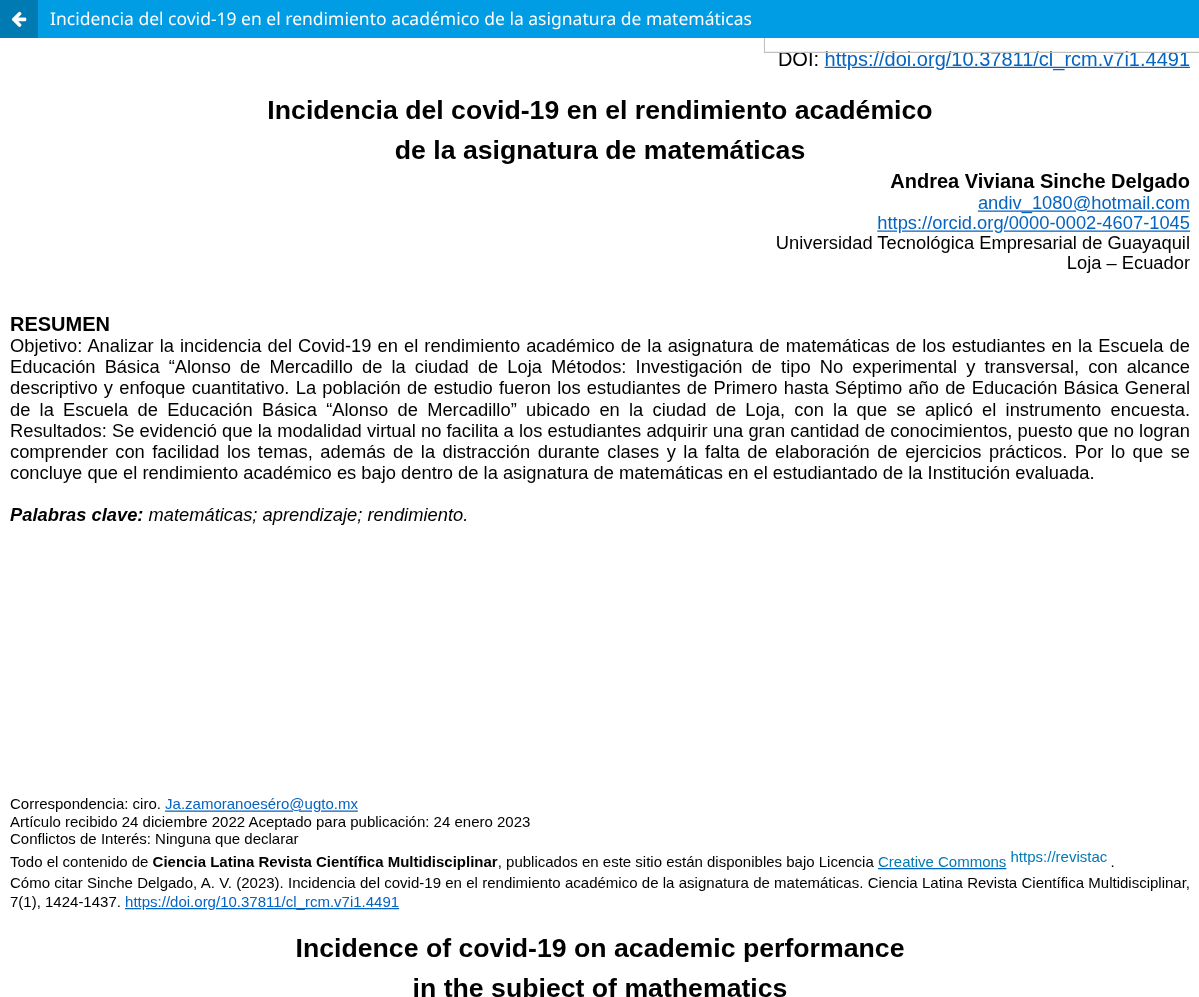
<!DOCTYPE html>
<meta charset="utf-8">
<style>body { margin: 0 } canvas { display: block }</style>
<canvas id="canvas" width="1199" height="997"></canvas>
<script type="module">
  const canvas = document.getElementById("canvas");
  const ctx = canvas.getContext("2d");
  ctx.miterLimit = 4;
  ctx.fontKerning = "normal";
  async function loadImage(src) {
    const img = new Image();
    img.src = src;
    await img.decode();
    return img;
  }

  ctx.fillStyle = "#ffffff";
  ctx.fillRect(0, 0, 1199, 997);
  ctx.fillStyle = "#009de5";
  ctx.fillRect(38, 0, 1161, 38);
  ctx.fillStyle = "#007ab2";
  ctx.fillRect(0, 0, 38, 38);
  ctx.drawImage(await loadImage("img1.png"), 11, 11, 16, 16);
  ctx.font = "17.5px Noto Sans";
  ctx.fillStyle = "#ffffff";
  ctx.fillText("Incidencia del covid-19 en el rendimiento académico de la asignatura de matemáticas", 50, 25);
  ctx.drawImage(await loadImage("img2.png"), 10, 38, 1189, 959);
</script>
